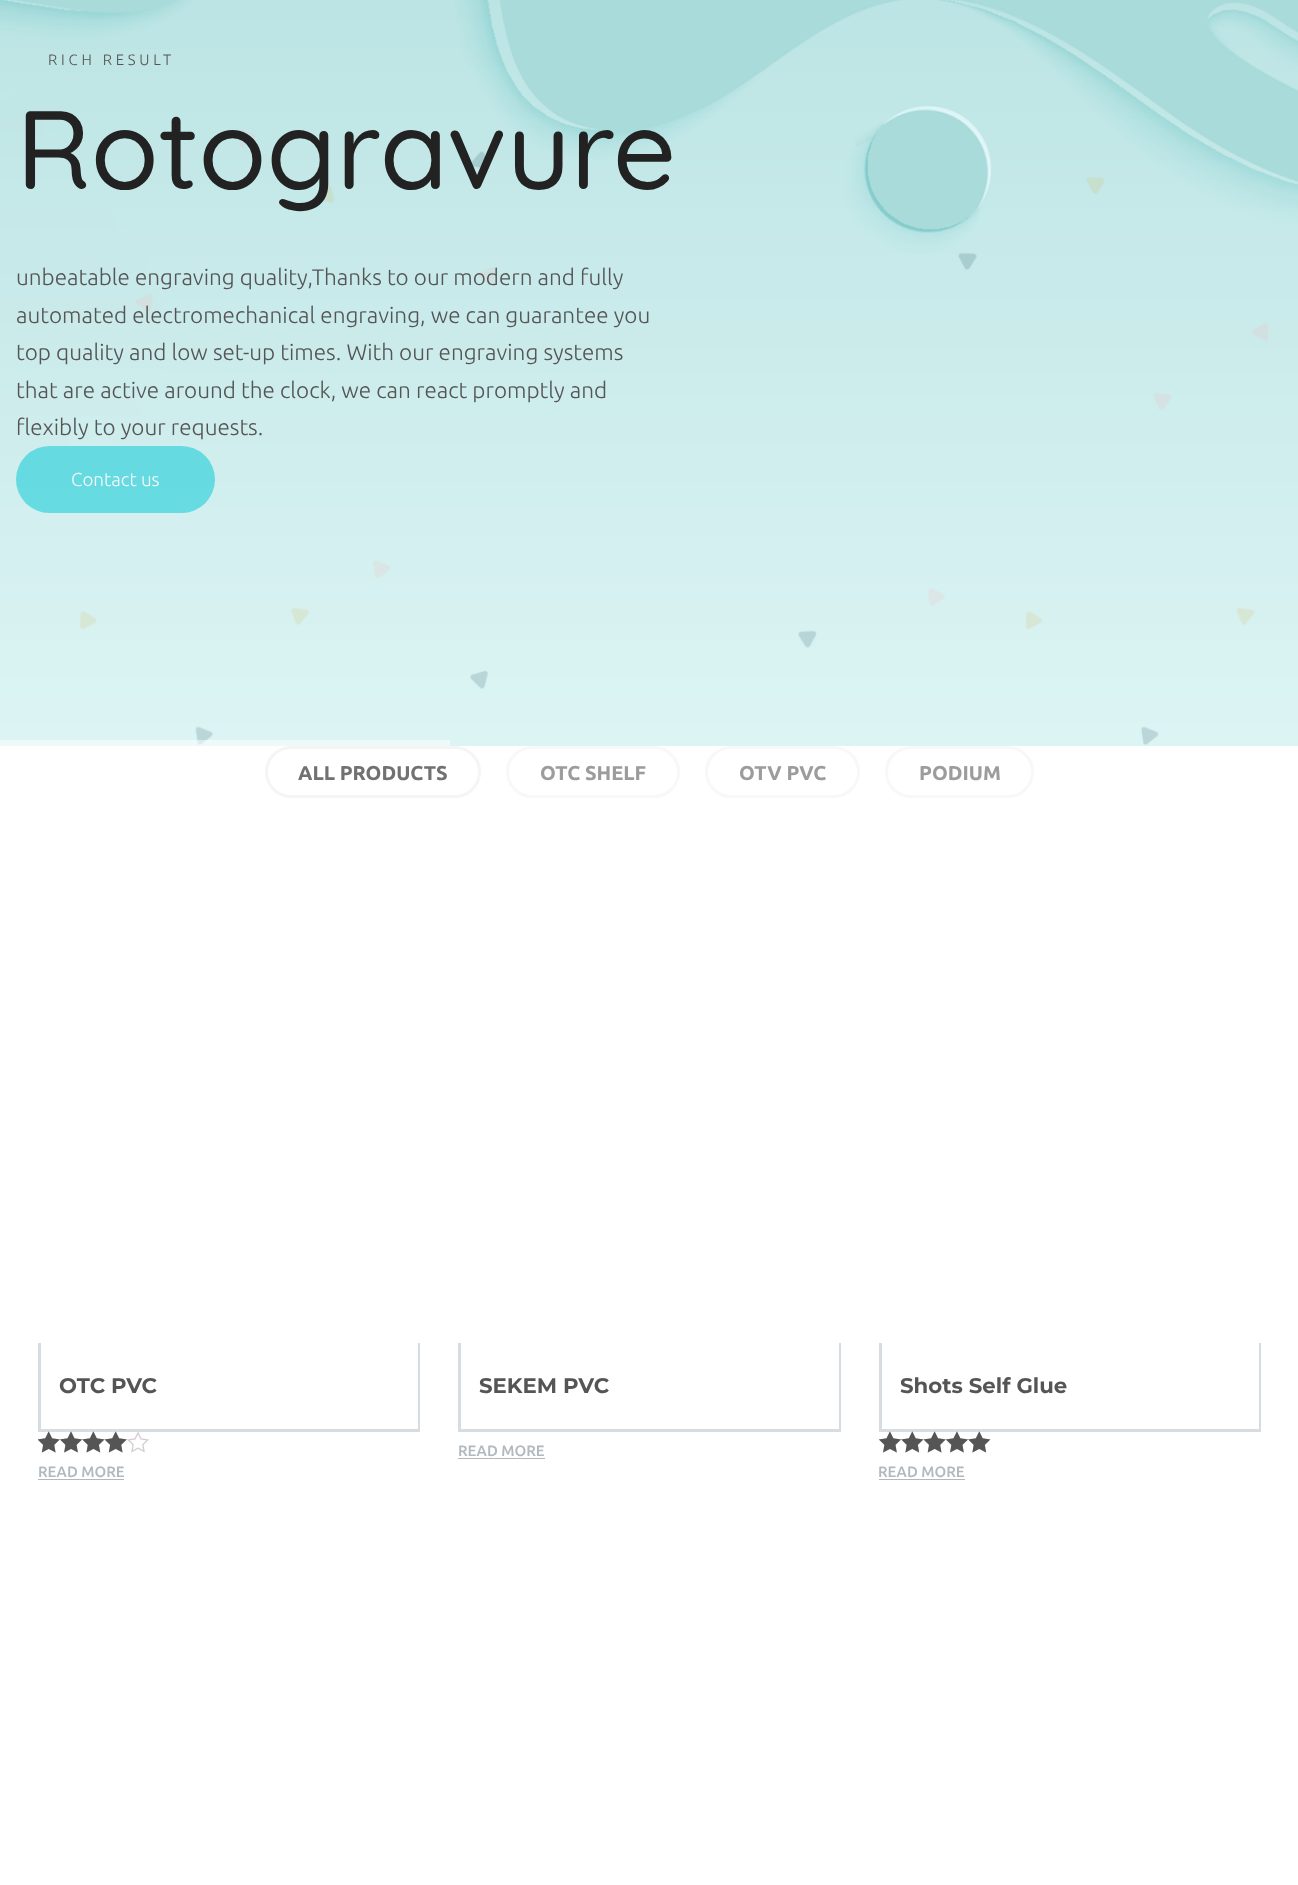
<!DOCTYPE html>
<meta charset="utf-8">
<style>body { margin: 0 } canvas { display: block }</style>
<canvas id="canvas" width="1298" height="1885"></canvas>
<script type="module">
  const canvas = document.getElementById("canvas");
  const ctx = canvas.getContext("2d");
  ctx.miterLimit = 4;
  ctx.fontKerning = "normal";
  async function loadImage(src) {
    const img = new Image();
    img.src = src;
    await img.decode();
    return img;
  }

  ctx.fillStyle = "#ffffff";
  ctx.fillRect(0, 0, 1298, 1885);
  ctx.drawImage(await loadImage("img1.png"), 0, 0, 1298, 746);
  ctx.letterSpacing = "3.75px";
  ctx.font = "300 15px Ubuntu";
  ctx.fillStyle = "#555555";
  ctx.fillText("RICH RESULT", 48, 65);
  ctx.letterSpacing = "0px";
  ctx.font = "300 111.25px Quicksand";
  ctx.fillStyle = "#222222";
  ctx.fillText("Rotogravure", 16, 189);
  ctx.font = "300 22.5px Ubuntu";
  ctx.fillStyle = "#555555";
  ctx.fillText("unbeatable engraving quality,Thanks to our modern and fully", 16, 285);
  ctx.fillText("automated electromechanical engraving, we can guarantee you", 16, 323);
  ctx.fillText("top quality and low set-up times. With our engraving systems", 16, 360);
  ctx.fillText("that are active around the clock, we can react promptly and", 16, 398);
  ctx.fillText("flexibly to your requests.", 16, 435);
  ctx.fillStyle = "rgba(60, 211, 221, 0.72)";
  ctx.beginPath();
  ctx.roundRect(16, 446, 199, 67, 33.5);
  ctx.fill();
  ctx.font = "300 18.75px Ubuntu";
  ctx.fillStyle = "#f2fafa";
  ctx.fillText("Contact us", 71, 486);
  ctx.fillStyle = "rgba(255, 255, 255, 0.5)";
  ctx.fillRect(0, 740, 450, 6);
  ctx.beginPath();
  ctx.roundRect(266.5, 747.5, 213, 49, 24.5);
  ctx.strokeStyle = "#f5f5f5";
  ctx.lineWidth = 3;
  ctx.stroke();
  ctx.font = "bold 20px Ubuntu";
  ctx.fillStyle = "#717171";
  ctx.fillText("ALL PRODUCTS", 298, 780);
  ctx.beginPath();
  ctx.roundRect(507.5, 747.5, 171, 49, 24.5);
  ctx.strokeStyle = "#f8f8f8";
  ctx.stroke();
  ctx.fillStyle = "#9c9c9c";
  ctx.fillText("OTC SHELF", 540, 780);
  ctx.beginPath();
  ctx.roundRect(706.5, 747.5, 152, 49, 24.5);
  ctx.stroke();
  ctx.fillText("OTV PVC", 739, 780);
  ctx.beginPath();
  ctx.roundRect(886.5, 747.5, 146, 49, 24.5);
  ctx.stroke();
  ctx.fillText("PODIUM", 919, 780);
  ctx.fillStyle = "#d7dce0";
  ctx.fillRect(418, 1343, 2, 88);
  ctx.fillRect(38, 1429, 382, 3);
  ctx.fillRect(38, 1343, 3, 88);
  ctx.font = "bold 21.25px Montserrat";
  ctx.fillStyle = "#555555";
  ctx.fillText("OTC PVC", 59, 1393);
  ctx.drawImage(await loadImage("img3.png"), 38, 1432, 111, 21);
  ctx.drawImage(await loadImage("img2.png"), 38, 1431, 89, 22);
  ctx.fillStyle = "#f0f0f0";
  ctx.fillRect(48, 1452, 1, 1);
  ctx.font = "500 15px Ubuntu";
  ctx.fillStyle = "#b2b9be";
  ctx.fillText("READ MORE", 38, 1477);
  ctx.fillRect(38, 1479, 86, 1);
  ctx.fillStyle = "#d7dce0";
  ctx.fillRect(839, 1343, 2, 88);
  ctx.fillRect(458, 1429, 383, 3);
  ctx.fillRect(458, 1343, 3, 88);
  ctx.font = "bold 21.25px Montserrat";
  ctx.fillStyle = "#555555";
  ctx.fillText("SEKEM PVC", 479, 1393);
  ctx.font = "500 15px Ubuntu";
  ctx.fillStyle = "#b2b9be";
  ctx.fillText("READ MORE", 458, 1456);
  ctx.fillRect(458, 1458, 87, 1);
  ctx.fillStyle = "#d7dce0";
  ctx.fillRect(1259, 1343, 2, 88);
  ctx.fillRect(879, 1429, 382, 3);
  ctx.fillRect(879, 1343, 3, 88);
  ctx.font = "bold 21.25px Montserrat";
  ctx.fillStyle = "#555555";
  ctx.fillText("Shots Self Glue", 900, 1393);
  ctx.drawImage(await loadImage("img5.png"), 879, 1432, 112, 21);
  ctx.drawImage(await loadImage("img4.png"), 879, 1431, 112, 22);
  ctx.font = "500 15px Ubuntu";
  ctx.fillStyle = "#b2b9be";
  ctx.fillText("READ MORE", 878, 1477);
  ctx.fillRect(879, 1479, 86, 1);
</script>
